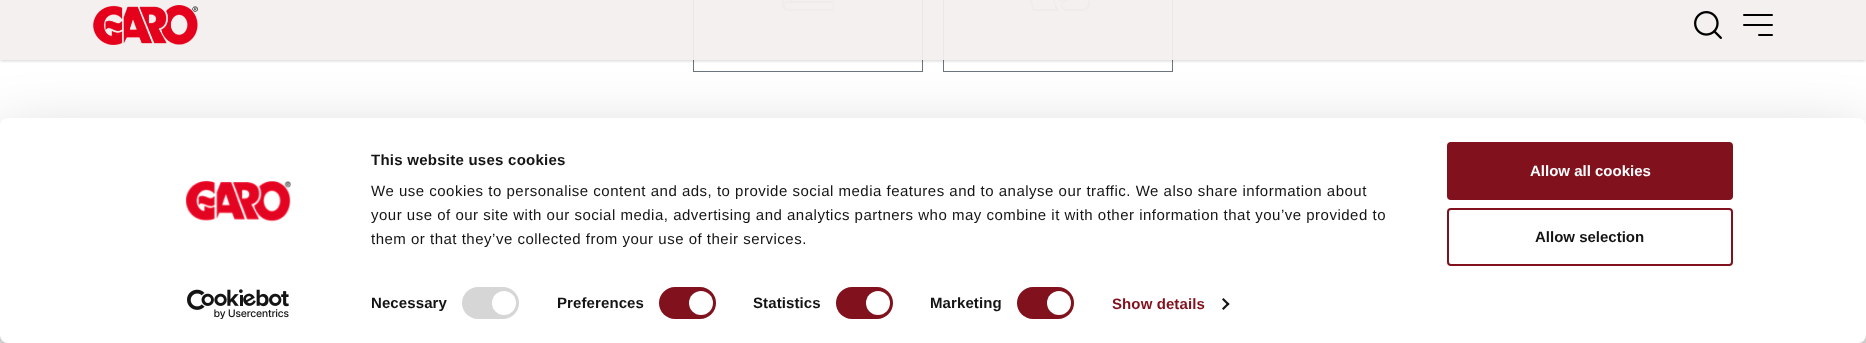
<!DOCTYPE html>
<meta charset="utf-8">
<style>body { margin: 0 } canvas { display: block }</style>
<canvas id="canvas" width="1866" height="343"></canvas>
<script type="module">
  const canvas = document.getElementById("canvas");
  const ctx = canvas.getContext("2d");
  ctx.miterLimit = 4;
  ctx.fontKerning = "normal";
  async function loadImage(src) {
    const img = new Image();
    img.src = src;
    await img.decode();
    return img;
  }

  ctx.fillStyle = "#ffffff";
  ctx.fillRect(0, 0, 1866, 343);
  ctx.strokeStyle = "#6c757d";
  ctx.strokeRect(693.5, -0.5, 229, 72);
  ctx.drawImage(await loadImage("img1.png"), 782, 0, 52, 11);
  ctx.strokeRect(943.5, -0.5, 229, 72);
  ctx.drawImage(await loadImage("img2.png"), 1029, 0, 62, 11);
  ctx.save();
  ctx.beginPath();
  ctx.rect(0, 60, 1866, 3);
  ctx.clip();
  ctx.fillStyle = "rgba(0, 0, 0, 0.25)";
  ctx.filter = "blur(2px)";
  ctx.beginPath();
  ctx.rect(0, 0, 1866, 60);
  ctx.fill();
  ctx.filter = "none";
  ctx.restore();
  ctx.fillStyle = "rgba(242, 239, 238, 0.94)";
  ctx.fillRect(0, 0, 1866, 60);
  ctx.drawImage(await loadImage("img3.png"), 93, 5, 105, 40);
  ctx.drawImage(await loadImage("img4.png"), 1694, 11, 28, 28);
  ctx.fillStyle = "#000000";
  ctx.beginPath();
  ctx.roundRect(1743, 14, 30, 2, 1);
  ctx.fill();
  ctx.beginPath();
  ctx.roundRect(1743, 24, 30, 2, 1);
  ctx.fill();
  ctx.beginPath();
  ctx.roundRect(1758, 34, 15, 2, 1);
  ctx.fill();
  ctx.fillStyle = "#f1eeed";
  ctx.fillRect(0, 335, 1866, 8);
  ctx.fillStyle = "rgba(0, 0, 0, 0.3)";
  ctx.filter = "blur(35px)";
  ctx.beginPath();
  ctx.roundRect(0, 148, 1866, 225, 8);
  ctx.fill();
  ctx.filter = "none";
  ctx.fillStyle = "#ffffff";
  ctx.beginPath();
  ctx.roundRect(0, 118, 1866, 225, 8);
  ctx.fill();
  ctx.drawImage(await loadImage("img5.png"), 185, 180, 106, 42);
  ctx.drawImage(await loadImage("img6.png"), 187, 289, 102, 30);
  ctx.letterSpacing = "0.25px";
  ctx.font = "bold 15px Liberation Sans";
  ctx.fillStyle = "#141414";
  ctx.fillText("This website uses cookies", 371, 165);
  ctx.letterSpacing = "0.5px";
  ctx.font = "15px Liberation Sans";
  ctx.fillText("We use cookies to personalise content and ads, to provide social media features and to analyse our traffic. We also share information about", 371, 196);
  ctx.fillText("your use of our site with our social media, advertising and analytics partners who may combine it with other information that you’ve provided to", 371, 220);
  ctx.fillText("them or that they’ve collected from your use of their services.", 371, 244);
  ctx.letterSpacing = "0.1px";
  ctx.font = "bold 15px Liberation Sans";
  ctx.fillText("Necessary", 371, 308);
  ctx.fillStyle = "#d6d6d6";
  ctx.beginPath();
  ctx.roundRect(462, 287, 57, 32, 16);
  ctx.fill();
  ctx.fillStyle = "#ffffff";
  ctx.beginPath();
  ctx.arc(504, 303, 12, 0, Math.PI * 2);
  ctx.fill();
  ctx.fillStyle = "#141414";
  ctx.fillText("Preferences", 557, 308);
  ctx.fillStyle = "#81111d";
  ctx.beginPath();
  ctx.roundRect(659, 287, 57, 32, 16);
  ctx.fill();
  ctx.fillStyle = "#ffffff";
  ctx.beginPath();
  ctx.arc(701, 303, 12, 0, Math.PI * 2);
  ctx.fill();
  ctx.fillStyle = "#141414";
  ctx.fillText("Statistics", 753, 308);
  ctx.fillStyle = "#81111d";
  ctx.beginPath();
  ctx.roundRect(836, 287, 57, 32, 16);
  ctx.fill();
  ctx.fillStyle = "#ffffff";
  ctx.beginPath();
  ctx.arc(878, 303, 12, 0, Math.PI * 2);
  ctx.fill();
  ctx.fillStyle = "#141414";
  ctx.fillText("Marketing", 930, 308);
  ctx.fillStyle = "#81111d";
  ctx.beginPath();
  ctx.roundRect(1017, 287, 57, 32, 16);
  ctx.fill();
  ctx.fillStyle = "#ffffff";
  ctx.beginPath();
  ctx.arc(1059, 303, 12, 0, Math.PI * 2);
  ctx.fill();
  ctx.fillStyle = "#81111d";
  ctx.fillText("Show details", 1112, 309);
  ctx.fillStyle = "#141414";
  ctx.beginPath();
  ctx.moveTo(1223.5, 298);
  ctx.lineTo(1229.5, 304);
  ctx.lineTo(1228, 305.5);
  ctx.lineTo(1222, 299.5);
  ctx.closePath();
  ctx.fill();
  ctx.beginPath();
  ctx.moveTo(1228, 302.5);
  ctx.lineTo(1229.5, 304);
  ctx.lineTo(1223.5, 310);
  ctx.lineTo(1222, 308.5);
  ctx.closePath();
  ctx.fill();
  ctx.fillStyle = "#81111d";
  ctx.beginPath();
  ctx.roundRect(1448, 143, 284, 56, 3);
  ctx.fill();
  ctx.strokeStyle = "#81111d";
  ctx.lineWidth = 2;
  ctx.stroke();
  ctx.letterSpacing = "0px";
  ctx.fillStyle = "#ffffff";
  ctx.fillText("Allow all cookies", 1530, 176);
  ctx.beginPath();
  ctx.roundRect(1448, 209, 284, 56, 3);
  ctx.stroke();
  ctx.fillStyle = "#141414";
  ctx.fillText("Allow selection", 1535, 242);
</script>
